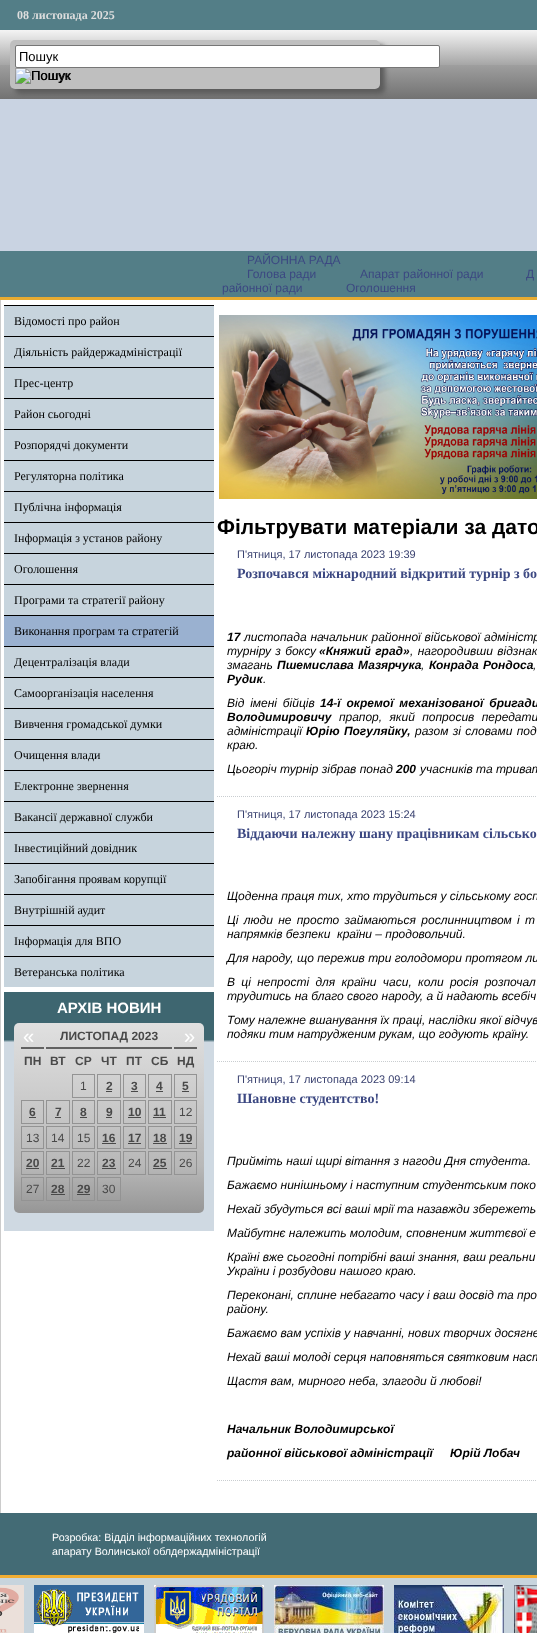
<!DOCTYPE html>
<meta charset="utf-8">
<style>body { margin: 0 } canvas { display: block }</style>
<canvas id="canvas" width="537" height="1633"></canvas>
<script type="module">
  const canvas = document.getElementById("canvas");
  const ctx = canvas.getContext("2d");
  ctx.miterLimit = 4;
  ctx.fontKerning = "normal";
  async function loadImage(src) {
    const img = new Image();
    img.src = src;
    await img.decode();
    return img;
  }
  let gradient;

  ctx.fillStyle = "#c9d3e2";
  ctx.fillRect(0, 0, 537, 1633);
  ctx.fillStyle = "#537e87";
  ctx.fillRect(0, 0, 537, 30);
  ctx.font = "bold 12px Liberation Serif";
  ctx.fillStyle = "#dedede";
  ctx.fillText("08 листопада 2025", 17, 19);
  gradient = ctx.createLinearGradient(500, 30, 500, 99);
  gradient.addColorStop(0, "#f4f4f4");
  gradient.addColorStop(0.5, "#a7a7a7");
  gradient.addColorStop(0.51, "#9e9e9e");
  gradient.addColorStop(1, "#727272");
  ctx.fillStyle = gradient;
  ctx.fillRect(0, 30, 537, 69);
  ctx.fillStyle = "#5b5b5b";
  ctx.filter = "blur(2.5px)";
  ctx.beginPath();
  ctx.roundRect(15, 45, 370, 49, 5);
  ctx.fill();
  ctx.filter = "none";
  ctx.fillStyle = "#bfbfbf";
  ctx.beginPath();
  ctx.roundRect(10, 40, 370, 49, 5);
  ctx.fill();
  ctx.fillStyle = "#ffffff";
  ctx.beginPath();
  ctx.roundRect(15.5, 45.5, 424, 22, 1.5);
  ctx.fill();
  ctx.strokeStyle = "#767676";
  ctx.stroke();
  ctx.font = "13px Liberation Sans";
  ctx.fillStyle = "#000000";
  ctx.fillText("Пошук", 19, 61);
  ctx.drawImage(await loadImage("img1.png"), 15, 68, 56, 16);
  ctx.fillText("Пошук", 31, 80);
  ctx.fillStyle = "#537e87";
  ctx.fillRect(0, 251, 537, 46);
  ctx.font = "12px Liberation Sans";
  ctx.fillStyle = "#3c4882";
  ctx.fillText("РАЙОННА РАДА", 247, 264);
  ctx.fillText("Голова ради", 247, 278);
  ctx.fillText("Апарат районної ради", 360, 278);
  ctx.fillText("Д", 526, 278);
  ctx.fillText("районної ради", 222, 292);
  ctx.fillText("Оголошення", 346, 292);
  ctx.fillStyle = "#ffffff";
  ctx.fillRect(1, 300, 536, 1213);
  ctx.fillStyle = "#e7ab31";
  ctx.fillRect(0, 297, 537, 3);
  ctx.fillStyle = "#cccccc";
  ctx.fillRect(0, 300, 1, 1213);
  ctx.fillStyle = "#c7d4dd";
  ctx.fillRect(4, 306, 210, 30);
  ctx.fillStyle = "#000000";
  ctx.fillRect(4, 305, 210, 1);
  ctx.font = "12px Liberation Serif";
  ctx.fillText("Відомості про район", 14, 325);
  ctx.fillStyle = "#c7d4dd";
  ctx.fillRect(4, 337, 210, 30);
  ctx.fillStyle = "#000000";
  ctx.fillRect(4, 336, 210, 1);
  ctx.fillText("Діяльність райдержадміністрації", 14, 356);
  ctx.fillStyle = "#c7d4dd";
  ctx.fillRect(4, 368, 210, 30);
  ctx.fillStyle = "#000000";
  ctx.fillRect(4, 367, 210, 1);
  ctx.fillText("Прес-центр", 14, 387);
  ctx.fillStyle = "#c7d4dd";
  ctx.fillRect(4, 399, 210, 30);
  ctx.fillStyle = "#000000";
  ctx.fillRect(4, 398, 210, 1);
  ctx.fillText("Район сьогодні", 14, 418);
  ctx.fillStyle = "#c7d4dd";
  ctx.fillRect(4, 430, 210, 30);
  ctx.fillStyle = "#000000";
  ctx.fillRect(4, 429, 210, 1);
  ctx.fillText("Розпорядчі документи", 14, 449);
  ctx.fillStyle = "#c7d4dd";
  ctx.fillRect(4, 461, 210, 30);
  ctx.fillStyle = "#000000";
  ctx.fillRect(4, 460, 210, 1);
  ctx.fillText("Регуляторна політика", 14, 480);
  ctx.fillStyle = "#c7d4dd";
  ctx.fillRect(4, 492, 210, 30);
  ctx.fillStyle = "#000000";
  ctx.fillRect(4, 491, 210, 1);
  ctx.fillText("Публічна інформація", 14, 511);
  ctx.fillStyle = "#c7d4dd";
  ctx.fillRect(4, 523, 210, 30);
  ctx.fillStyle = "#000000";
  ctx.fillRect(4, 522, 210, 1);
  ctx.fillText("Інформація з установ району", 14, 542);
  ctx.fillStyle = "#c7d4dd";
  ctx.fillRect(4, 554, 210, 30);
  ctx.fillStyle = "#000000";
  ctx.fillRect(4, 553, 210, 1);
  ctx.fillText("Оголошення", 14, 573);
  ctx.fillStyle = "#c7d4dd";
  ctx.fillRect(4, 585, 210, 30);
  ctx.fillStyle = "#000000";
  ctx.fillRect(4, 584, 210, 1);
  ctx.fillText("Програми та стратегії району", 14, 604);
  ctx.fillStyle = "#9ab1d0";
  ctx.fillRect(4, 616, 210, 30);
  ctx.fillStyle = "#000000";
  ctx.fillRect(4, 615, 210, 1);
  ctx.fillText("Виконання програм та стратегій", 14, 635);
  ctx.fillStyle = "#c7d4dd";
  ctx.fillRect(4, 647, 210, 30);
  ctx.fillStyle = "#000000";
  ctx.fillRect(4, 646, 210, 1);
  ctx.fillText("Децентралізація влади", 14, 666);
  ctx.fillStyle = "#c7d4dd";
  ctx.fillRect(4, 678, 210, 30);
  ctx.fillStyle = "#000000";
  ctx.fillRect(4, 677, 210, 1);
  ctx.fillText("Самоорганізація населення", 14, 697);
  ctx.fillStyle = "#c7d4dd";
  ctx.fillRect(4, 709, 210, 30);
  ctx.fillStyle = "#000000";
  ctx.fillRect(4, 708, 210, 1);
  ctx.fillText("Вивчення громадської думки", 14, 728);
  ctx.fillStyle = "#c7d4dd";
  ctx.fillRect(4, 740, 210, 30);
  ctx.fillStyle = "#000000";
  ctx.fillRect(4, 739, 210, 1);
  ctx.fillText("Очищення влади", 14, 759);
  ctx.fillStyle = "#c7d4dd";
  ctx.fillRect(4, 771, 210, 30);
  ctx.fillStyle = "#000000";
  ctx.fillRect(4, 770, 210, 1);
  ctx.fillText("Електронне звернення", 14, 790);
  ctx.fillStyle = "#c7d4dd";
  ctx.fillRect(4, 802, 210, 30);
  ctx.fillStyle = "#000000";
  ctx.fillRect(4, 801, 210, 1);
  ctx.fillText("Вакансії державної служби", 14, 821);
  ctx.fillStyle = "#c7d4dd";
  ctx.fillRect(4, 833, 210, 30);
  ctx.fillStyle = "#000000";
  ctx.fillRect(4, 832, 210, 1);
  ctx.fillText("Інвестиційний довідник", 14, 852);
  ctx.fillStyle = "#c7d4dd";
  ctx.fillRect(4, 864, 210, 30);
  ctx.fillStyle = "#000000";
  ctx.fillRect(4, 863, 210, 1);
  ctx.fillText("Запобігання проявам корупції", 14, 883);
  ctx.fillStyle = "#c7d4dd";
  ctx.fillRect(4, 895, 210, 30);
  ctx.fillStyle = "#000000";
  ctx.fillRect(4, 894, 210, 1);
  ctx.fillText("Внутрішній аудит", 14, 914);
  ctx.fillStyle = "#c7d4dd";
  ctx.fillRect(4, 926, 210, 30);
  ctx.fillStyle = "#000000";
  ctx.fillRect(4, 925, 210, 1);
  ctx.fillText("Інформація для ВПО", 14, 945);
  ctx.fillStyle = "#c7d4dd";
  ctx.fillRect(4, 957, 210, 30);
  ctx.fillStyle = "#000000";
  ctx.fillRect(4, 956, 210, 1);
  ctx.fillText("Ветеранська політика", 14, 976);
  gradient = ctx.createLinearGradient(109, 992, 109, 1231);
  gradient.addColorStop(0, "#3e6670");
  gradient.addColorStop(0.2, "#3e6670");
  gradient.addColorStop(0.21, "#cfd9e2");
  gradient.addColorStop(1, "#cfd9e2");
  ctx.fillStyle = gradient;
  ctx.fillRect(4, 992, 210, 239);
  ctx.font = "bold 15px Liberation Sans";
  ctx.fillStyle = "#ffffff";
  ctx.fillText("АРХІВ НОВИН", 57, 1013);
  gradient = ctx.createLinearGradient(109, 1213, 109, 1023);
  gradient.addColorStop(0, "#969696");
  gradient.addColorStop(0.25, "#b8b8b8");
  gradient.addColorStop(0.75, "#d3d3d3");
  gradient.addColorStop(1, "#e0e0e0");
  ctx.fillStyle = gradient;
  ctx.beginPath();
  ctx.roundRect(14, 1023, 190, 190, 5);
  ctx.fill();
  ctx.fillStyle = "#626262";
  ctx.fillRect(21, 1047, 23, 2);
  ctx.font = "20px Liberation Sans";
  ctx.fillStyle = "#ffffff";
  ctx.fillText("«", 23, 1043);
  ctx.fillStyle = "#626262";
  ctx.fillRect(46, 1047, 126, 2);
  ctx.font = "bold 12px Liberation Sans";
  ctx.fillStyle = "#494949";
  ctx.fillText("ЛИСТОПАД 2023", 60, 1040);
  ctx.fillStyle = "#626262";
  ctx.fillRect(174, 1047, 23, 2);
  ctx.font = "20px Liberation Sans";
  ctx.fillStyle = "#ffffff";
  ctx.fillText("»", 184, 1043);
  ctx.font = "bold 12px Liberation Sans";
  ctx.fillStyle = "#494949";
  ctx.fillText("ПН", 24, 1065);
  ctx.fillText("ВТ", 50, 1065);
  ctx.fillText("СР", 75, 1065);
  ctx.fillText("ЧТ", 101, 1065);
  ctx.fillText("ПТ", 126, 1065);
  ctx.fillText("СБ", 151, 1065);
  ctx.fillText("НД", 177, 1065);
  ctx.strokeStyle = "#939393";
  ctx.strokeRect(72.5, 1074.5, 22, 23);
  ctx.font = "12px Liberation Sans";
  ctx.fillText("1", 80, 1090);
  ctx.strokeRect(97.5, 1074.5, 23, 23);
  ctx.font = "bold 12px Liberation Sans";
  ctx.fillText("2", 106, 1090);
  ctx.fillRect(106, 1091, 6, 1);
  ctx.strokeRect(123.5, 1074.5, 22, 23);
  ctx.fillText("3", 131, 1090);
  ctx.fillRect(131, 1091, 7, 1);
  ctx.strokeRect(148.5, 1074.5, 23, 23);
  ctx.fillText("4", 156, 1090);
  ctx.fillRect(156, 1091, 7, 1);
  ctx.strokeRect(174.5, 1074.5, 22, 23);
  ctx.fillText("5", 182, 1090);
  ctx.fillRect(182, 1091, 7, 1);
  ctx.strokeRect(21.5, 1100.5, 22, 23);
  ctx.fillText("6", 29, 1116);
  ctx.fillRect(29, 1117, 7, 1);
  ctx.strokeRect(46.5, 1100.5, 23, 23);
  ctx.fillText("7", 55, 1116);
  ctx.fillRect(55, 1117, 6, 1);
  ctx.strokeRect(72.5, 1100.5, 22, 23);
  ctx.fillText("8", 80, 1116);
  ctx.fillRect(80, 1117, 7, 1);
  ctx.strokeRect(97.5, 1100.5, 23, 23);
  ctx.fillText("9", 106, 1116);
  ctx.fillRect(106, 1117, 6, 1);
  ctx.strokeRect(123.5, 1100.5, 22, 23);
  ctx.fillText("10", 128, 1116);
  ctx.fillRect(128, 1117, 13, 1);
  ctx.strokeRect(148.5, 1100.5, 23, 23);
  ctx.fillText("11", 153, 1116);
  ctx.fillRect(153, 1117, 13, 1);
  ctx.strokeRect(174.5, 1100.5, 22, 23);
  ctx.font = "12px Liberation Sans";
  ctx.fillText("12", 179, 1116);
  ctx.strokeRect(21.5, 1126.5, 22, 22);
  ctx.fillText("13", 26, 1142);
  ctx.strokeRect(46.5, 1126.5, 23, 22);
  ctx.fillText("14", 51, 1142);
  ctx.strokeRect(72.5, 1126.5, 22, 22);
  ctx.fillText("15", 77, 1142);
  ctx.strokeRect(97.5, 1126.5, 23, 22);
  ctx.font = "bold 12px Liberation Sans";
  ctx.fillText("16", 102, 1142);
  ctx.fillRect(102, 1143, 14, 1);
  ctx.strokeRect(123.5, 1126.5, 22, 22);
  ctx.fillText("17", 128, 1142);
  ctx.fillRect(128, 1143, 13, 1);
  ctx.strokeRect(148.5, 1126.5, 23, 22);
  ctx.fillText("18", 153, 1142);
  ctx.fillRect(153, 1143, 14, 1);
  ctx.strokeRect(174.5, 1126.5, 22, 22);
  ctx.fillText("19", 179, 1142);
  ctx.fillRect(179, 1143, 13, 1);
  ctx.strokeRect(21.5, 1151.5, 22, 23);
  ctx.fillText("20", 26, 1167);
  ctx.fillRect(26, 1168, 13, 1);
  ctx.strokeRect(46.5, 1151.5, 23, 23);
  ctx.fillText("21", 51, 1167);
  ctx.fillRect(51, 1168, 14, 1);
  ctx.strokeRect(72.5, 1151.5, 22, 23);
  ctx.font = "12px Liberation Sans";
  ctx.fillText("22", 77, 1167);
  ctx.strokeRect(97.5, 1151.5, 23, 23);
  ctx.font = "bold 12px Liberation Sans";
  ctx.fillText("23", 102, 1167);
  ctx.fillRect(102, 1168, 14, 1);
  ctx.strokeRect(123.5, 1151.5, 22, 23);
  ctx.font = "12px Liberation Sans";
  ctx.fillText("24", 128, 1167);
  ctx.strokeRect(148.5, 1151.5, 23, 23);
  ctx.font = "bold 12px Liberation Sans";
  ctx.fillText("25", 153, 1167);
  ctx.fillRect(153, 1168, 14, 1);
  ctx.strokeRect(174.5, 1151.5, 22, 23);
  ctx.font = "12px Liberation Sans";
  ctx.fillText("26", 179, 1167);
  ctx.strokeRect(21.5, 1177.5, 22, 23);
  ctx.fillText("27", 26, 1193);
  ctx.strokeRect(46.5, 1177.5, 23, 23);
  ctx.font = "bold 12px Liberation Sans";
  ctx.fillText("28", 51, 1193);
  ctx.fillRect(51, 1194, 14, 1);
  ctx.strokeRect(72.5, 1177.5, 22, 23);
  ctx.fillText("29", 77, 1193);
  ctx.fillRect(77, 1194, 13, 1);
  ctx.strokeRect(97.5, 1177.5, 23, 23);
  ctx.font = "12px Liberation Sans";
  ctx.fillText("30", 102, 1193);
  ctx.drawImage(await loadImage("img2.png"), 219, 315, 318, 184);
  ctx.font = "bold 21px Liberation Sans";
  ctx.fillStyle = "#000000";
  ctx.fillText("Фільтрувати матеріали за дато", 217, 534);
  ctx.beginPath();
  ctx.moveTo(217, 796.5);
  ctx.lineTo(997, 796.5);
  ctx.strokeStyle = "#c9cdd0";
  ctx.setLineDash([1, 1]);
  ctx.stroke();
  ctx.font = "11px Liberation Sans";
  ctx.fillStyle = "#3a4270";
  ctx.fillText("П'ятниця, 17 листопада 2023 19:39", 237, 558);
  ctx.font = "bold 14px Liberation Serif";
  ctx.fillStyle = "#3c4882";
  ctx.fillText("Розпочався міжнародний відкритий турнір з бо", 237, 578);
  ctx.font = "italic bold 12px Liberation Sans";
  ctx.fillStyle = "#000000";
  ctx.fillText("17", 227, 641);
  ctx.wordSpacing = "0.5px";
  ctx.font = "italic 12px Liberation Sans";
  ctx.fillText("листопада начальник районної військової адміністр", 244, 641);
  ctx.wordSpacing = "1px";
  ctx.fillText("турніру з боксу", 227, 655);
  ctx.font = "italic bold 12px Liberation Sans";
  ctx.fillText("«Княжий град»", 319, 655);
  ctx.font = "italic 12px Liberation Sans";
  ctx.fillText(", нагородивши відзнак", 410, 655);
  ctx.wordSpacing = "0px";
  ctx.fillText("змагань", 227, 669);
  ctx.wordSpacing = "1px";
  ctx.font = "italic bold 12px Liberation Sans";
  ctx.fillText("Пшемислава Мазярчука", 277, 669);
  ctx.wordSpacing = "0px";
  ctx.font = "italic 12px Liberation Sans";
  ctx.fillText(",", 421, 669);
  ctx.wordSpacing = "1px";
  ctx.font = "italic bold 12px Liberation Sans";
  ctx.fillText("Конрада Рондоса", 429, 669);
  ctx.wordSpacing = "0px";
  ctx.font = "italic 12px Liberation Sans";
  ctx.fillText(",", 533, 669);
  ctx.font = "italic bold 12px Liberation Sans";
  ctx.fillText("Рудик", 227, 683);
  ctx.font = "italic 12px Liberation Sans";
  ctx.fillText(".", 263, 683);
  ctx.wordSpacing = "2.5px";
  ctx.fillText("Від імені бійців", 227, 707);
  ctx.font = "italic bold 12px Liberation Sans";
  ctx.fillText("14-ї окремої механізованої бригади", 320, 707);
  ctx.wordSpacing = "0px";
  ctx.fillText("Володимировичу", 227, 721);
  ctx.wordSpacing = "4px";
  ctx.font = "italic 12px Liberation Sans";
  ctx.fillText("прапор, який попросив передати", 339, 721);
  ctx.wordSpacing = "0px";
  ctx.fillText("адміністрації", 227, 735);
  ctx.wordSpacing = "1px";
  ctx.font = "italic bold 12px Liberation Sans";
  ctx.fillText("Юрію Погуляйку,", 306, 735);
  ctx.font = "italic 12px Liberation Sans";
  ctx.fillText("разом зі словами под", 415, 735);
  ctx.wordSpacing = "0px";
  ctx.fillText("краю.", 227, 749);
  ctx.fillText("Цьогоріч турнір зібрав понад", 227, 773);
  ctx.font = "italic bold 12px Liberation Sans";
  ctx.fillText("200", 396, 773);
  ctx.font = "italic 12px Liberation Sans";
  ctx.fillText("учасників та триват", 420, 773);
  ctx.beginPath();
  ctx.moveTo(217, 1061.5);
  ctx.lineTo(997, 1061.5);
  ctx.stroke();
  ctx.font = "11px Liberation Sans";
  ctx.fillStyle = "#3a4270";
  ctx.fillText("П'ятниця, 17 листопада 2023 15:24", 237, 818);
  ctx.font = "bold 14px Liberation Serif";
  ctx.fillStyle = "#3c4882";
  ctx.fillText("Віддаючи належну шану працівникам сільсько", 237, 838);
  ctx.font = "italic 12px Liberation Sans";
  ctx.fillStyle = "#000000";
  ctx.fillText("Щоденна праця тих, хто трудиться у сільському госп", 227, 900);
  ctx.wordSpacing = "2px";
  ctx.fillText("Ці люди не просто займаються рослинництвом і т", 227, 924);
  ctx.wordSpacing = "0px";
  ctx.fillText("напрямків безпеки  країни – продовольчий.", 227, 938);
  ctx.fillText("Для народу, що пережив три голодомори протягом ли", 227, 962);
  ctx.wordSpacing = "3px";
  ctx.fillText("В ці непрості для країни часи, коли росія розпочал", 227, 986);
  ctx.wordSpacing = "0px";
  ctx.fillText("трудитись на благо свого народу, а й надають всебіч", 227, 1000);
  ctx.fillText("Тому належне вшанування їх праці, наслідки якої відчув", 227, 1024);
  ctx.fillText("подяки тим натрудженим рукам, що годують країну.", 227, 1038);
  ctx.beginPath();
  ctx.moveTo(217, 1480.5);
  ctx.lineTo(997, 1480.5);
  ctx.stroke();
  ctx.font = "11px Liberation Sans";
  ctx.fillStyle = "#3a4270";
  ctx.fillText("П'ятниця, 17 листопада 2023 09:14", 237, 1083);
  ctx.font = "bold 14px Liberation Serif";
  ctx.fillStyle = "#3c4882";
  ctx.fillText("Шановне студентство!", 237, 1103);
  ctx.font = "italic 12px Liberation Sans";
  ctx.fillStyle = "#000000";
  ctx.fillText("Прийміть наші щирі вітання з нагоди Дня студента.", 227, 1165);
  ctx.fillText("Бажаємо нинішньому і наступним студентським поко", 227, 1189);
  ctx.fillText("Нехай збудуться всі ваші мрії та назавжди збережеть", 227, 1213);
  ctx.fillText("Майбутнє належить молодим, сповненим життєвої е", 227, 1237);
  ctx.fillText("Країні вже сьогодні потрібні ваші знання, ваш реальни", 227, 1261);
  ctx.fillText("України і розбудови нашого краю.", 227, 1275);
  ctx.fillText("Переконані, сплине небагато часу і ваш досвід та про", 227, 1299);
  ctx.fillText("району.", 227, 1313);
  ctx.fillText("Бажаємо вам успіхів у навчанні, нових творчих досягне", 227, 1337);
  ctx.fillText("Нехай ваші молоді серця наповняться святковим наст", 227, 1361);
  ctx.fillText("Щастя вам, мирного неба, злагоди й любові!", 227, 1385);
  ctx.font = "italic bold 12px Liberation Sans";
  ctx.fillText("Начальник Володимирської", 227, 1433);
  ctx.fillText("районної військової адміністрації", 227, 1457);
  ctx.fillText("Юрій Лобач", 450, 1457);
  ctx.fillStyle = "#436b75";
  ctx.fillRect(0, 1513, 537, 62);
  ctx.fillStyle = "#f1ad32";
  ctx.fillRect(0, 1575, 537, 3);
  ctx.font = "10.7px Liberation Sans";
  ctx.fillStyle = "#ffffff";
  ctx.fillText("Розробка: Відділ інформаційних технологій", 52, 1541);
  ctx.fillText("апарату Волинської облдержадміністрації", 52, 1555);
  ctx.fillStyle = "#c7d4dd";
  ctx.fillRect(0, 1578, 537, 55);
  ctx.drawImage(await loadImage("img3.png"), 0, 1585, 24, 48);
  ctx.drawImage(await loadImage("img4.png"), 34, 1585, 110, 48);
  ctx.drawImage(await loadImage("img5.png"), 154, 1585, 110, 48);
  ctx.drawImage(await loadImage("img6.png"), 274, 1585, 110, 48);
  ctx.drawImage(await loadImage("img7.png"), 394, 1585, 110, 48);
  ctx.drawImage(await loadImage("img8.png"), 514, 1585, 23, 48);
</script>
